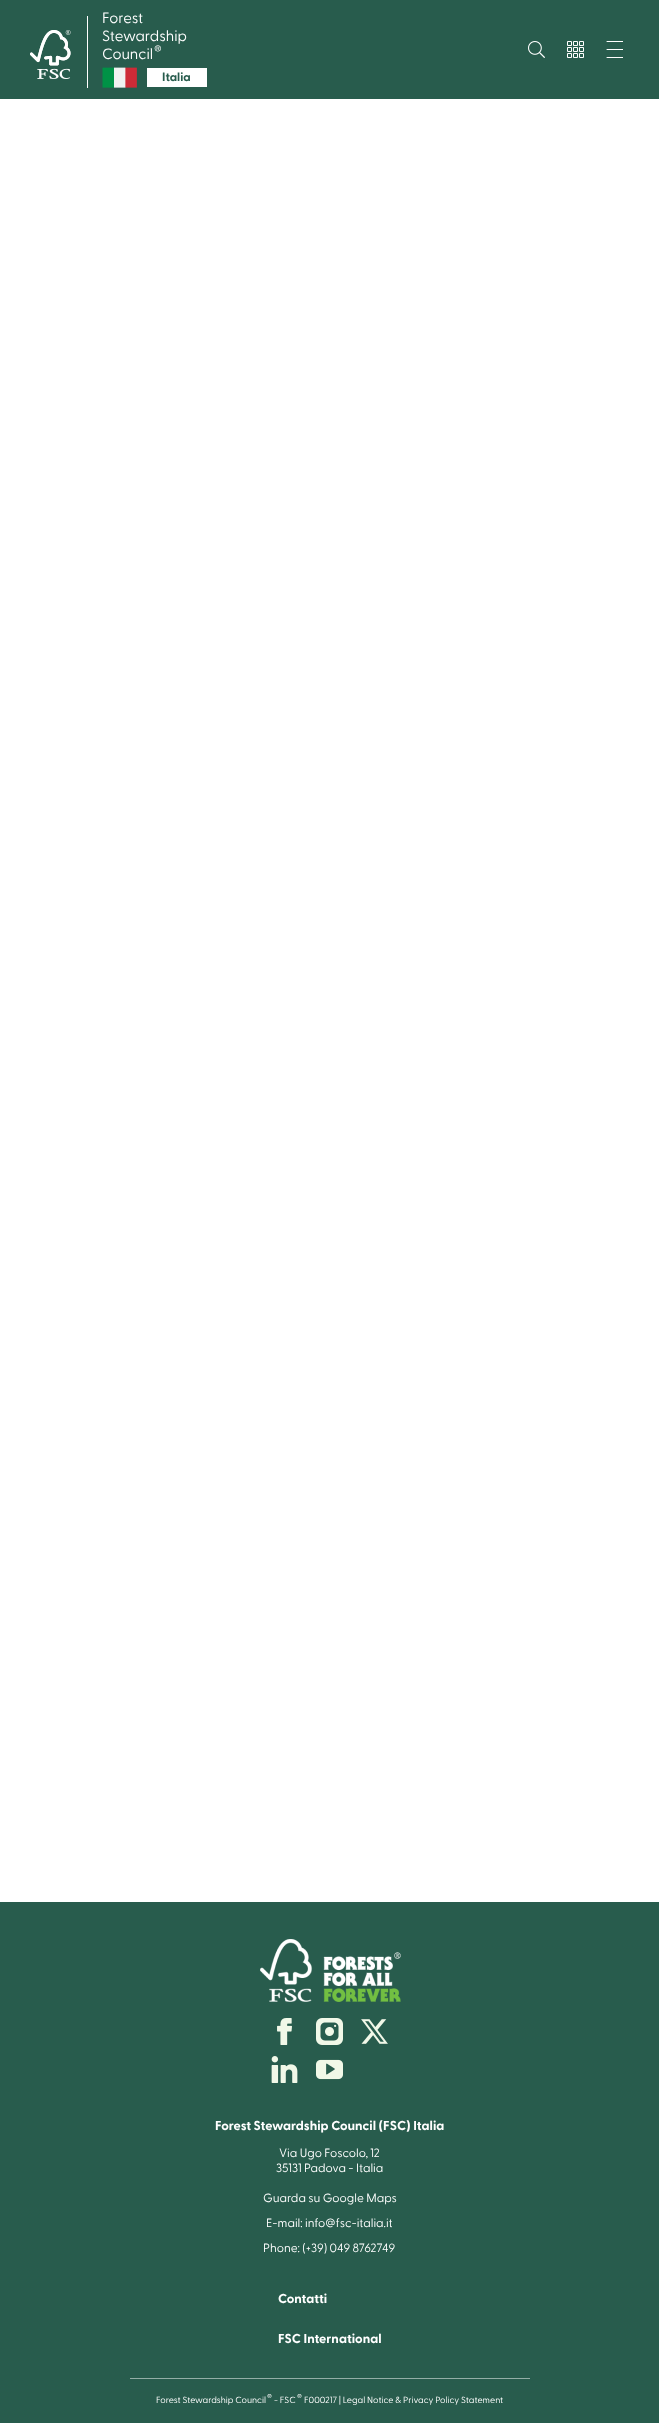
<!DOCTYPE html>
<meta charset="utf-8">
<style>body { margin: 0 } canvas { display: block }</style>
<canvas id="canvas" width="659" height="2423"></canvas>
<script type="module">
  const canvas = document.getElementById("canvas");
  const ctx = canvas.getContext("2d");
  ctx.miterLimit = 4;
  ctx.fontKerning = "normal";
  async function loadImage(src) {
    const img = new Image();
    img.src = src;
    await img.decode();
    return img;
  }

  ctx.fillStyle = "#ffffff";
  ctx.fillRect(0, 0, 659, 2423);
  ctx.fillStyle = "#285c4d";
  ctx.fillRect(0, 0, 659, 99);
  ctx.drawImage(await loadImage("img1.png"), 30, 30, 41, 49);
  ctx.fillStyle = "#ffffff";
  ctx.fillRect(87, 16, 1, 72);
  ctx.font = "15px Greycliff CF";
  ctx.fillText("Forest", 102, 23);
  ctx.fillText("Stewardship", 102, 41);
  ctx.fillText("Council", 102, 59);
  ctx.font = "11px Greycliff CF";
  ctx.fillText("®", 154, 53);
  ctx.drawImage(await loadImage("img2.png"), 102, 67, 35, 21);
  ctx.fillRect(147, 68, 60, 19);
  ctx.font = "bold 12px Greycliff CF";
  ctx.fillStyle = "#285c4d";
  ctx.fillText("Italia", 162, 81);
  ctx.drawImage(await loadImage("img3.png"), 528, 41, 17, 17);
  ctx.drawImage(await loadImage("img4.png"), 567, 41, 17, 17);
  ctx.save();
  ctx.beginPath();
  ctx.rect(606, 41, 17, 17);
  ctx.clip();
  ctx.beginPath();
  ctx.moveTo(607, 41.5);
  ctx.lineTo(623, 41.5);
  ctx.moveTo(607, 49.5);
  ctx.lineTo(623, 49.5);
  ctx.moveTo(607, 57.5);
  ctx.lineTo(623, 57.5);
  ctx.strokeStyle = "#ffffff";
  ctx.lineCap = "round";
  ctx.stroke();
  ctx.restore();
  ctx.fillRect(0, 1902, 659, 521);
  ctx.drawImage(await loadImage("img5.png"), 260, 1939, 141, 63);
  ctx.drawImage(await loadImage("img6.png"), 277, 2018, 15, 27);
  ctx.drawImage(await loadImage("img7.png"), 316, 2018, 27, 27);
  ctx.drawImage(await loadImage("img8.png"), 361, 2019, 27, 25);
  ctx.drawImage(await loadImage("img9.png"), 271, 2056, 27, 27);
  ctx.drawImage(await loadImage("img10.png"), 316, 2059, 27, 21);
  ctx.font = "bold 13px Greycliff CF";
  ctx.fillStyle = "#ffffff";
  ctx.fillText("Forest Stewardship Council (FSC) Italia", 215, 2130);
  ctx.font = "12px Greycliff CF";
  ctx.fillText("Via Ugo Foscolo, 12", 279, 2157);
  ctx.fillText("35131 Padova - Italia", 276, 2172);
  ctx.fillText("Guarda su Google Maps", 263, 2202);
  ctx.fillText("E-mail: info@fsc-italia.it", 266, 2227);
  ctx.fillText("Phone: (+39) 049 8762749", 263, 2252);
  ctx.font = "bold 13px Greycliff CF";
  ctx.fillText("Contatti", 278, 2303);
  ctx.fillText("FSC International", 278, 2343);
  ctx.fillStyle = "#94aea6";
  ctx.fillRect(130, 2378, 400, 1);
  ctx.font = "9px Greycliff CF";
  ctx.fillStyle = "#ffffff";
  ctx.fillText("Forest Stewardship Council", 156, 2403);
  ctx.font = "7px Greycliff CF";
  ctx.fillText("®", 267, 2399);
  ctx.font = "9px Greycliff CF";
  ctx.fillText("- FSC", 274, 2403);
  ctx.font = "7px Greycliff CF";
  ctx.fillText("®", 297, 2399);
  ctx.font = "9px Greycliff CF";
  ctx.fillText("F000217 | Legal Notice & Privacy Policy Statement", 304, 2403);
</script>
